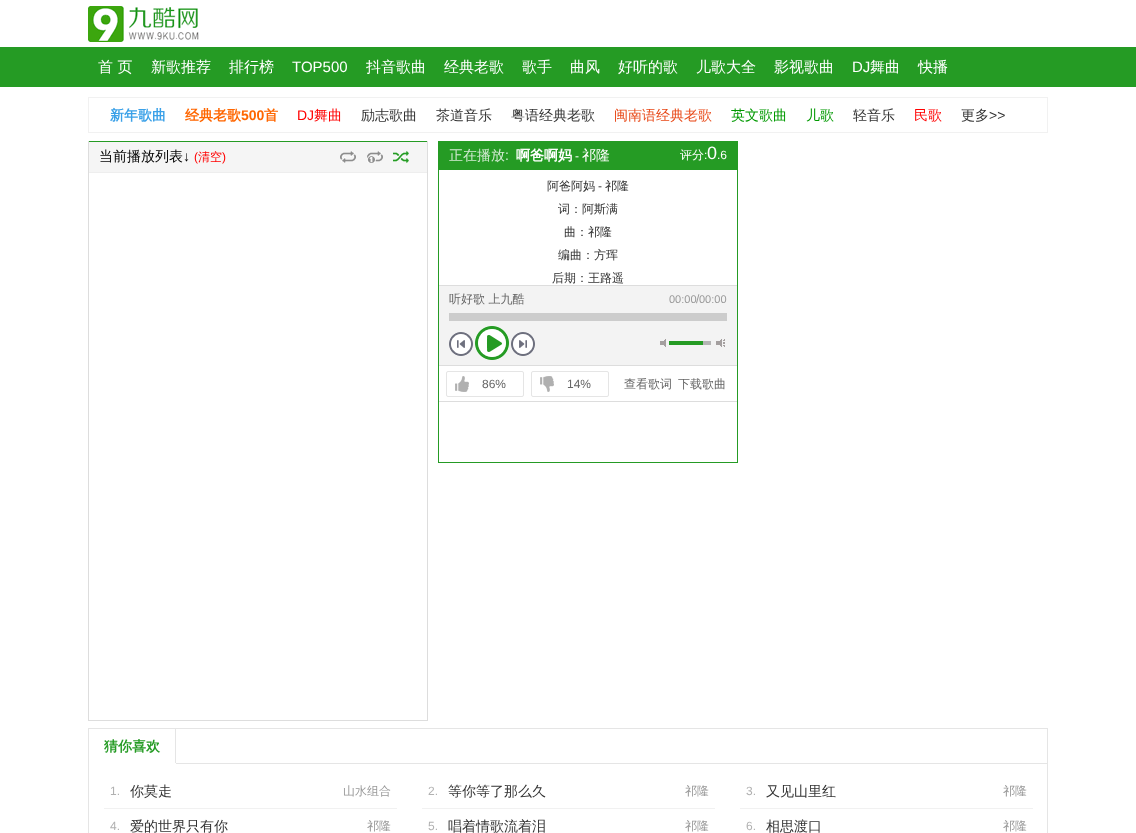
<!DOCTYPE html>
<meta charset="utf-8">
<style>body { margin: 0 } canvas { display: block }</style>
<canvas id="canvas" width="1136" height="833"></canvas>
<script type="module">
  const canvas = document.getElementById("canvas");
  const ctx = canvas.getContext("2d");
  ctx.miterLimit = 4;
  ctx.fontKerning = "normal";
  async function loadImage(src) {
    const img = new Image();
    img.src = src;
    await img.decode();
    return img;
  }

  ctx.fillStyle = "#ffffff";
  ctx.fillRect(0, 0, 1136, 833);
  ctx.drawImage(await loadImage("img1.png"), 88, 6, 111, 36);
  ctx.fillStyle = "#259b24";
  ctx.fillRect(0, 47, 1136, 40);
  ctx.font = "500 15px WenQuanYi Zen Hei";
  ctx.fillStyle = "#ffffff";
  ctx.fillText("首 页", 98, 72);
  ctx.fillText("新歌推荐", 151, 72);
  ctx.fillText("排行榜", 229, 72);
  ctx.font = "15px Liberation Sans";
  ctx.fillText("TOP500", 292, 72);
  ctx.font = "500 15px WenQuanYi Zen Hei";
  ctx.fillText("抖音歌曲", 366, 72);
  ctx.fillText("经典老歌", 444, 72);
  ctx.fillText("歌手", 522, 72);
  ctx.fillText("曲风", 570, 72);
  ctx.fillText("好听的歌", 618, 72);
  ctx.fillText("儿歌大全", 696, 72);
  ctx.fillText("影视歌曲", 774, 72);
  ctx.font = "15px Liberation Sans";
  ctx.fillText("DJ", 852, 72);
  ctx.font = "500 15px WenQuanYi Zen Hei";
  ctx.fillText("舞曲", 870, 72);
  ctx.fillText("快播", 918, 72);
  ctx.strokeStyle = "#f1f1f1";
  ctx.strokeRect(88.5, 97.5, 959, 35);
  ctx.font = "bold 14px WenQuanYi Zen Hei";
  ctx.fillStyle = "#3ba1e8";
  ctx.fillText("新年歌曲", 110, 120);
  ctx.fillStyle = "#ff6600";
  ctx.fillText("经典老歌", 185, 120);
  ctx.font = "bold 14px Liberation Sans";
  ctx.fillText("500", 241, 120);
  ctx.font = "bold 14px WenQuanYi Zen Hei";
  ctx.fillText("首", 264, 120);
  ctx.font = "14px Liberation Sans";
  ctx.fillStyle = "#ff0000";
  ctx.fillText("DJ", 297, 120);
  ctx.font = "500 14px WenQuanYi Zen Hei";
  ctx.fillText("舞曲", 314, 120);
  ctx.fillStyle = "#333333";
  ctx.fillText("励志歌曲", 361, 120);
  ctx.fillText("茶道音乐", 436, 120);
  ctx.fillText("粤语经典老歌", 511, 120);
  ctx.fillStyle = "#e84817";
  ctx.fillText("闽南语经典老歌", 614, 120);
  ctx.fillStyle = "#009900";
  ctx.fillText("英文歌曲", 731, 120);
  ctx.fillText("儿歌", 806, 120);
  ctx.fillStyle = "#333333";
  ctx.fillText("轻音乐", 853, 120);
  ctx.fillStyle = "#ff0000";
  ctx.fillText("民歌", 914, 120);
  ctx.fillStyle = "#333333";
  ctx.fillText("更多", 961, 120);
  ctx.font = "14px Liberation Sans";
  ctx.fillText(">>", 989, 120);
  ctx.fillStyle = "#259b24";
  ctx.fillRect(88, 141, 340, 1);
  ctx.fillStyle = "#dddddd";
  ctx.fillRect(427, 141, 1, 580);
  ctx.fillRect(88, 720, 340, 1);
  ctx.fillRect(88, 141, 1, 580);
  ctx.fillStyle = "#f5f5f5";
  ctx.fillRect(89, 142, 338, 30);
  ctx.fillStyle = "#eeeeee";
  ctx.fillRect(89, 172, 338, 1);
  ctx.font = "500 14px WenQuanYi Zen Hei";
  ctx.fillStyle = "#000000";
  ctx.fillText("当前播放列表", 99, 161);
  ctx.font = "14px Liberation Sans";
  ctx.fillText("↓", 183, 161);
  ctx.font = "12px Liberation Sans";
  ctx.fillStyle = "#ff0000";
  ctx.fillText("(", 194, 161);
  ctx.font = "500 12px WenQuanYi Zen Hei";
  ctx.fillText("清空", 198, 161);
  ctx.font = "12px Liberation Sans";
  ctx.fillText(")", 222, 161);
  ctx.drawImage(await loadImage("img2.png"), 340, 151, 16, 12);
  ctx.drawImage(await loadImage("img3.png"), 367, 151, 16, 12);
  ctx.drawImage(await loadImage("img4.png"), 393, 150, 16, 14);
  ctx.fillStyle = "#259b24";
  ctx.fillRect(438, 141, 300, 1);
  ctx.fillRect(737, 141, 1, 266);
  ctx.fillRect(438, 141, 1, 266);
  ctx.fillRect(439, 142, 298, 28);
  ctx.font = "500 14px WenQuanYi Zen Hei";
  ctx.fillStyle = "#d3ebd3";
  ctx.fillText("正在播放", 449, 160);
  ctx.font = "14px Liberation Sans";
  ctx.fillText(":", 505, 160);
  ctx.font = "bold 14px WenQuanYi Zen Hei";
  ctx.fillStyle = "#ffffff";
  ctx.fillText("啊爸啊妈", 516, 160);
  ctx.font = "12px Liberation Sans";
  ctx.fillText("-", 575, 160);
  ctx.font = "500 14px WenQuanYi Zen Hei";
  ctx.fillText("祁隆", 582, 160);
  ctx.font = "500 12px WenQuanYi Zen Hei";
  ctx.fillText("评分", 680, 159);
  ctx.font = "12px Liberation Sans";
  ctx.fillText(":", 704, 159);
  ctx.font = "18px Liberation Sans";
  ctx.fillText("0", 707, 159);
  ctx.font = "12px Liberation Sans";
  ctx.fillText(".6", 717, 159);
  ctx.font = "500 12px WenQuanYi Zen Hei";
  ctx.fillStyle = "#333333";
  ctx.fillText("阿爸阿妈", 547, 190);
  ctx.font = "12px Liberation Sans";
  ctx.fillText("-", 598, 190);
  ctx.font = "500 12px WenQuanYi Zen Hei";
  ctx.fillText("祁隆", 605, 190);
  ctx.fillText("词：阿斯满", 558, 213);
  ctx.fillText("曲：祁隆", 564, 236);
  ctx.fillText("编曲：方珲", 558, 259);
  ctx.fillText("后期：王路遥", 552, 282);
  ctx.fillStyle = "#f3f3f3";
  ctx.fillRect(439, 286, 298, 79);
  ctx.fillStyle = "#dddddd";
  ctx.fillRect(439, 285, 298, 1);
  ctx.fillRect(439, 365, 298, 1);
  ctx.fillStyle = "#666666";
  ctx.fillText("听好歌 上九酷", 449, 303);
  ctx.font = "11px Liberation Sans";
  ctx.fillStyle = "#999999";
  ctx.fillText("00:00", 669, 303);
  ctx.font = "12px Liberation Sans";
  ctx.fillText("/", 696, 303);
  ctx.font = "11px Liberation Sans";
  ctx.fillText("00:00", 699, 303);
  ctx.fillStyle = "#cccccc";
  ctx.fillRect(449, 313, 278, 8);
  ctx.drawImage(await loadImage("img5.png"), 449, 332, 24, 24);
  ctx.drawImage(await loadImage("img6.png"), 475, 326, 34, 34);
  ctx.drawImage(await loadImage("img7.png"), 511, 332, 24, 24);
  ctx.drawImage(await loadImage("img8.png"), 660, 339, 6, 8);
  ctx.fillStyle = "#b4b4b4";
  ctx.fillRect(703, 341, 8, 4);
  ctx.fillStyle = "#259b24";
  ctx.fillRect(669, 341, 34, 4);
  ctx.drawImage(await loadImage("img9.png"), 716, 339, 9, 8);
  ctx.fillStyle = "#dddddd";
  ctx.fillRect(439, 401, 298, 1);
  ctx.beginPath();
  ctx.roundRect(446.5, 371.5, 77, 25, 1.5);
  ctx.strokeStyle = "#e5e5e5";
  ctx.stroke();
  ctx.drawImage(await loadImage("img10.png"), 455, 376, 14, 16);
  ctx.font = "12px Liberation Sans";
  ctx.fillStyle = "#666666";
  ctx.fillText("86%", 482, 388);
  ctx.beginPath();
  ctx.roundRect(531.5, 371.5, 77, 25, 1.5);
  ctx.stroke();
  ctx.drawImage(await loadImage("img11.png"), 540, 376, 14, 16);
  ctx.fillText("14%", 567, 388);
  ctx.font = "500 12px WenQuanYi Zen Hei";
  ctx.fillText("查看歌词", 624, 388);
  ctx.fillText("下载歌曲", 678, 388);
  ctx.fillStyle = "#259b24";
  ctx.fillRect(737, 407, 1, 56);
  ctx.fillRect(438, 462, 300, 1);
  ctx.fillRect(438, 407, 1, 56);
  ctx.strokeRect(88.5, 728.5, 959, 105);
  ctx.fillStyle = "#e5e5e5";
  ctx.fillRect(176, 763, 871, 1);
  ctx.fillRect(175, 729, 1, 35);
  ctx.fillStyle = "#ffffff";
  ctx.fillRect(175, 763, 1, 1);
  ctx.font = "bold 14px WenQuanYi Zen Hei";
  ctx.fillStyle = "#259b24";
  ctx.fillText("猜你喜欢", 104, 751);
  ctx.fillStyle = "#f1f1f1";
  ctx.fillRect(104, 808, 293, 1);
  ctx.font = "12px Liberation Sans";
  ctx.fillStyle = "#b1b1b1";
  ctx.fillText("1.", 110, 795);
  ctx.font = "500 14px WenQuanYi Zen Hei";
  ctx.fillStyle = "#333333";
  ctx.fillText("你莫走", 130, 796);
  ctx.font = "500 12px WenQuanYi Zen Hei";
  ctx.fillStyle = "#999999";
  ctx.fillText("山水组合", 343, 795);
  ctx.fillStyle = "#f1f1f1";
  ctx.fillRect(422, 808, 293, 1);
  ctx.font = "12px Liberation Sans";
  ctx.fillStyle = "#b1b1b1";
  ctx.fillText("2.", 428, 795);
  ctx.font = "500 14px WenQuanYi Zen Hei";
  ctx.fillStyle = "#333333";
  ctx.fillText("等你等了那么久", 448, 796);
  ctx.font = "500 12px WenQuanYi Zen Hei";
  ctx.fillStyle = "#999999";
  ctx.fillText("祁隆", 685, 795);
  ctx.fillStyle = "#f1f1f1";
  ctx.fillRect(740, 808, 293, 1);
  ctx.font = "12px Liberation Sans";
  ctx.fillStyle = "#b1b1b1";
  ctx.fillText("3.", 746, 795);
  ctx.font = "500 14px WenQuanYi Zen Hei";
  ctx.fillStyle = "#333333";
  ctx.fillText("又见山里红", 766, 796);
  ctx.font = "500 12px WenQuanYi Zen Hei";
  ctx.fillStyle = "#999999";
  ctx.fillText("祁隆", 1003, 795);
  ctx.font = "12px Liberation Sans";
  ctx.fillStyle = "#b1b1b1";
  ctx.fillText("4.", 110, 830);
  ctx.font = "500 14px WenQuanYi Zen Hei";
  ctx.fillStyle = "#333333";
  ctx.fillText("爱的世界只有你", 130, 831);
  ctx.font = "500 12px WenQuanYi Zen Hei";
  ctx.fillStyle = "#999999";
  ctx.fillText("祁隆", 367, 830);
  ctx.font = "12px Liberation Sans";
  ctx.fillStyle = "#b1b1b1";
  ctx.fillText("5.", 428, 830);
  ctx.font = "500 14px WenQuanYi Zen Hei";
  ctx.fillStyle = "#333333";
  ctx.fillText("唱着情歌流着泪", 448, 831);
  ctx.font = "500 12px WenQuanYi Zen Hei";
  ctx.fillStyle = "#999999";
  ctx.fillText("祁隆", 685, 830);
  ctx.font = "12px Liberation Sans";
  ctx.fillStyle = "#b1b1b1";
  ctx.fillText("6.", 746, 830);
  ctx.font = "500 14px WenQuanYi Zen Hei";
  ctx.fillStyle = "#333333";
  ctx.fillText("相思渡口", 766, 831);
  ctx.font = "500 12px WenQuanYi Zen Hei";
  ctx.fillStyle = "#999999";
  ctx.fillText("祁隆", 1003, 830);
</script>
